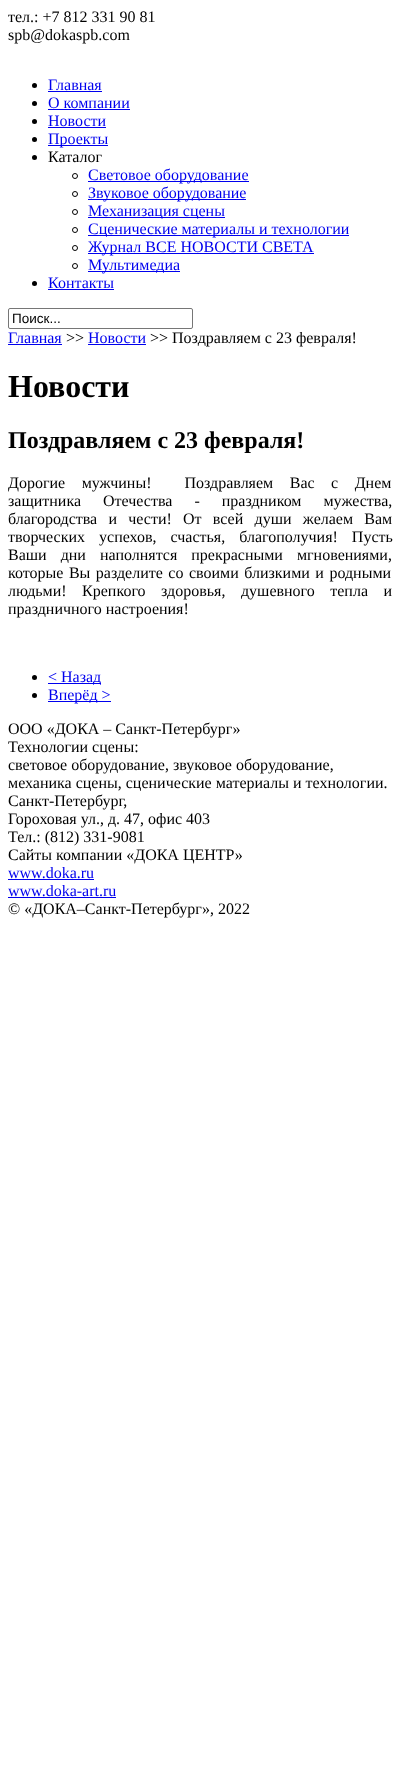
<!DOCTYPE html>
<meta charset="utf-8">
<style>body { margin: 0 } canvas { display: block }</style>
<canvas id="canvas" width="400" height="1771"></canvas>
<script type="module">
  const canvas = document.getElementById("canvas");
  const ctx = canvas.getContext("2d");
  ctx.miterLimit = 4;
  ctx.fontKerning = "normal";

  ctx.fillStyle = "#ffffff";
  ctx.fillRect(0, 0, 400, 1771);
  ctx.font = "16px Liberation Serif";
  ctx.fillStyle = "#000000";
  ctx.fillText("тел.: +7 812 331 90 81", 8, 22);
  ctx.fillText("spb@dokaspb.com", 8, 40);
  ctx.beginPath();
  ctx.arc(34.5, 85.5, 2.5, 0, Math.PI * 2);
  ctx.fill();
  ctx.fillStyle = "#0000ee";
  ctx.fillText("Главная", 48, 90);
  ctx.fillRect(48, 91, 54, 1);
  ctx.fillStyle = "#000000";
  ctx.beginPath();
  ctx.arc(34.5, 103.5, 2.5, 0, Math.PI * 2);
  ctx.fill();
  ctx.fillStyle = "#0000ee";
  ctx.fillText("О компании", 48, 108);
  ctx.fillRect(48, 109, 82, 1);
  ctx.fillStyle = "#000000";
  ctx.beginPath();
  ctx.arc(34.5, 121.5, 2.5, 0, Math.PI * 2);
  ctx.fill();
  ctx.fillStyle = "#0000ee";
  ctx.fillText("Новости", 48, 126);
  ctx.fillRect(48, 127, 58, 1);
  ctx.fillStyle = "#000000";
  ctx.beginPath();
  ctx.arc(34.5, 139.5, 2.5, 0, Math.PI * 2);
  ctx.fill();
  ctx.fillStyle = "#0000ee";
  ctx.fillRect(48, 145, 60, 1);
  ctx.fillText("Проекты", 48, 144);
  ctx.fillStyle = "#000000";
  ctx.beginPath();
  ctx.arc(34.5, 157.5, 2.5, 0, Math.PI * 2);
  ctx.fill();
  ctx.fillText("Каталог", 48, 162);
  ctx.beginPath();
  ctx.arc(75, 176, 2.5, 0, Math.PI * 2);
  ctx.strokeStyle = "#000000";
  ctx.stroke();
  ctx.fillStyle = "#0000ee";
  ctx.fillRect(88, 181, 161, 1);
  ctx.fillText("Световое оборудование", 88, 180);
  ctx.beginPath();
  ctx.arc(75, 194, 2.5, 0, Math.PI * 2);
  ctx.stroke();
  ctx.fillRect(88, 199, 158, 1);
  ctx.fillText("Звуковое оборудование", 88, 198);
  ctx.beginPath();
  ctx.arc(75, 212, 2.5, 0, Math.PI * 2);
  ctx.stroke();
  ctx.fillRect(88, 217, 137, 1);
  ctx.fillText("Механизация сцены", 88, 216);
  ctx.beginPath();
  ctx.arc(75, 230, 2.5, 0, Math.PI * 2);
  ctx.stroke();
  ctx.fillRect(88, 235, 261, 1);
  ctx.fillText("Сценические материалы и технологии", 88, 234);
  ctx.beginPath();
  ctx.arc(75, 248, 2.5, 0, Math.PI * 2);
  ctx.stroke();
  ctx.fillRect(88, 253, 226, 1);
  ctx.fillText("Журнал ВСЕ НОВОСТИ СВЕТА", 88, 252);
  ctx.beginPath();
  ctx.arc(75, 266, 2.5, 0, Math.PI * 2);
  ctx.stroke();
  ctx.fillRect(88, 271, 92, 1);
  ctx.fillText("Мультимедиа", 88, 270);
  ctx.fillStyle = "#000000";
  ctx.beginPath();
  ctx.arc(34.5, 283.5, 2.5, 0, Math.PI * 2);
  ctx.fill();
  ctx.fillStyle = "#0000ee";
  ctx.fillText("Контакты", 48, 288);
  ctx.fillRect(48, 289, 66, 1);
  ctx.beginPath();
  ctx.roundRect(8.5, 308.5, 184, 20, 1.5);
  ctx.strokeStyle = "#767676";
  ctx.stroke();
  ctx.font = "13.5px Liberation Sans";
  ctx.fillStyle = "#000000";
  ctx.fillText("Поиск...", 12, 323);
  ctx.font = "16px Liberation Serif";
  ctx.fillStyle = "#0000ee";
  ctx.fillText("Главная", 8, 343);
  ctx.fillRect(8, 344, 54, 1);
  ctx.fillStyle = "#000000";
  ctx.fillText(">>", 66, 343);
  ctx.fillStyle = "#0000ee";
  ctx.fillText("Новости", 88, 343);
  ctx.fillRect(88, 344, 58, 1);
  ctx.fillStyle = "#000000";
  ctx.fillText(">> Поздравляем с 23 февраля!", 150, 343);
  ctx.font = "bold 32px Liberation Serif";
  ctx.fillText("Новости", 8, 397);
  ctx.font = "bold 24px Liberation Serif";
  ctx.fillText("Поздравляем с 23 февраля!", 8, 448);
  ctx.wordSpacing = "12.5px";
  ctx.font = "16px Liberation Serif";
  ctx.fillText("Дорогие мужчины!  Поздравляем Вас с Днем", 8, 488);
  ctx.wordSpacing = "18px";
  ctx.fillText("защитника Отечества - праздником мужества,", 8, 506);
  ctx.wordSpacing = "7.25px";
  ctx.fillText("благородства и чести! От всей души желаем Вам", 8, 524);
  ctx.wordSpacing = "10px";
  ctx.fillText("творческих успехов, счастья, благополучия! Пусть", 8, 542);
  ctx.fillText("Ваши дни наполнятся прекрасными мгновениями,", 8, 560);
  ctx.wordSpacing = "1.5px";
  ctx.fillText("которые Вы разделите со своими близкими и родными", 8, 578);
  ctx.wordSpacing = "11.5px";
  ctx.fillText("людьми! Крепкого здоровья, душевного тепла и", 8, 596);
  ctx.wordSpacing = "0px";
  ctx.fillText("праздничного настроения!", 8, 614);
  ctx.beginPath();
  ctx.arc(34.5, 677.5, 2.5, 0, Math.PI * 2);
  ctx.fill();
  ctx.fillStyle = "#0000ee";
  ctx.fillRect(48, 683, 53, 1);
  ctx.fillText("< Назад", 48, 682);
  ctx.fillStyle = "#000000";
  ctx.beginPath();
  ctx.arc(34.5, 695.5, 2.5, 0, Math.PI * 2);
  ctx.fill();
  ctx.fillStyle = "#0000ee";
  ctx.fillRect(48, 701, 63, 1);
  ctx.fillText("Вперёд >", 48, 700);
  ctx.fillStyle = "#000000";
  ctx.fillText("ООО «ДОКА – Санкт-Петербург»", 8, 734);
  ctx.fillText("Технологии сцены:", 8, 752);
  ctx.fillText("световое оборудование, звуковое оборудование,", 8, 770);
  ctx.fillText("механика сцены, сценические материалы и технологии.", 8, 788);
  ctx.fillText("Санкт-Петербург,", 8, 806);
  ctx.fillText("Гороховая ул., д. 47, офис 403", 8, 824);
  ctx.fillText("Тел.: (812) 331-9081", 8, 842);
  ctx.fillText("Сайты компании «ДОКА ЦЕНТР»", 8, 860);
  ctx.fillStyle = "#0000ee";
  ctx.fillText("www.doka.ru", 8, 878);
  ctx.fillRect(8, 879, 86, 1);
  ctx.fillText("www.doka-art.ru", 8, 896);
  ctx.fillRect(8, 897, 108, 1);
  ctx.fillStyle = "#000000";
  ctx.fillText("© «ДОКА–Санкт-Петербург», 2022", 8, 914);
</script>
